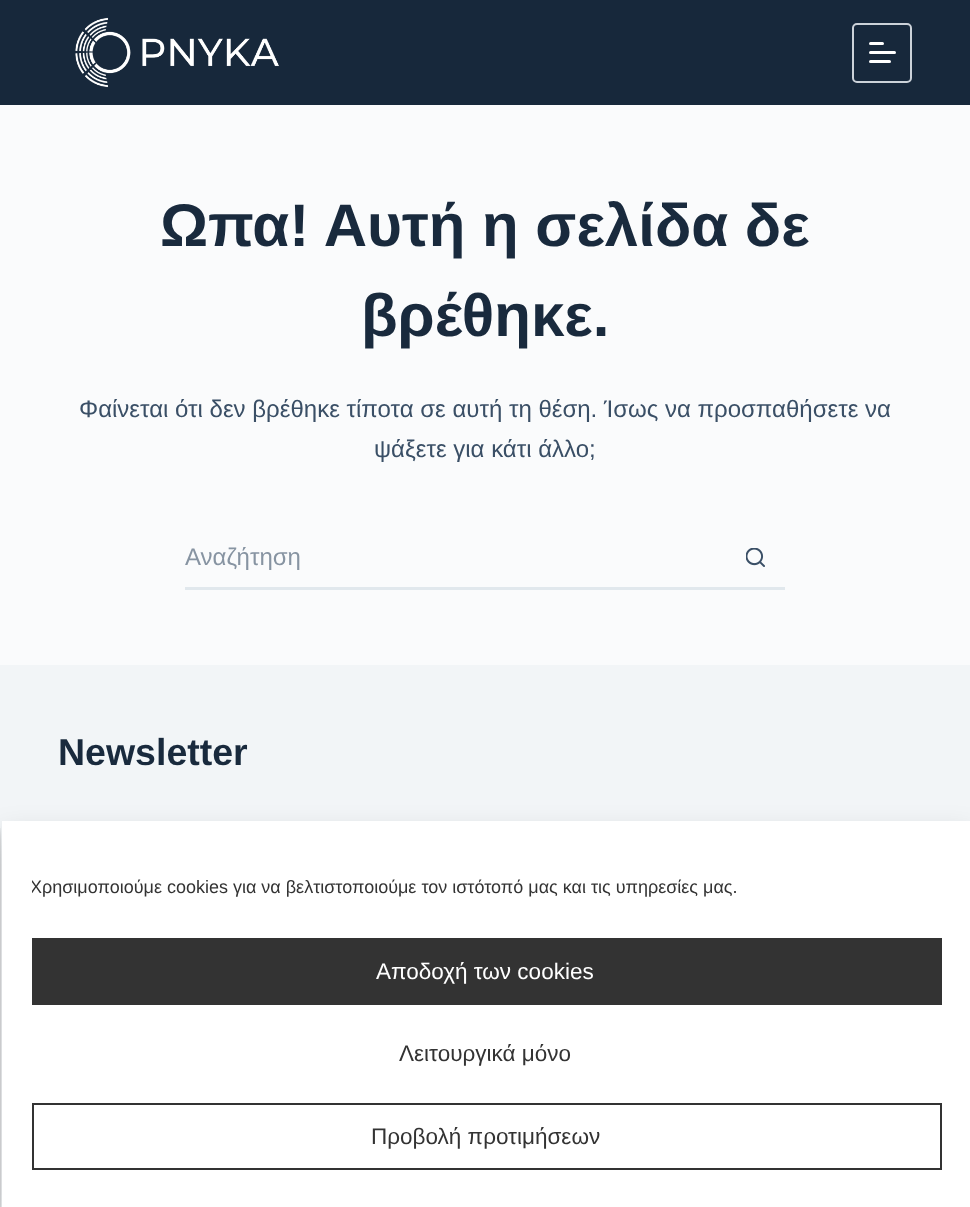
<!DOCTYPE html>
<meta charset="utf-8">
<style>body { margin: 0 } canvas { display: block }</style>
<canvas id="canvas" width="970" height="1207"></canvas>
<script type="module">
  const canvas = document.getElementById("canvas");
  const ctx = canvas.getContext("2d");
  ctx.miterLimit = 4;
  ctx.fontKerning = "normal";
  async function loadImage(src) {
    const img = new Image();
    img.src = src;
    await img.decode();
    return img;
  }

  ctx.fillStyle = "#fafbfc";
  ctx.fillRect(0, 0, 970, 1207);
  ctx.fillStyle = "#17283b";
  ctx.fillRect(0, 0, 970, 105);
  ctx.drawImage(await loadImage("img1.png"), 75, 17, 204, 71);
  ctx.beginPath();
  ctx.roundRect(853, 24, 58, 58, 4);
  ctx.strokeStyle = "#ccd2d9";
  ctx.lineWidth = 2;
  ctx.stroke();
  ctx.fillStyle = "#ffffff";
  ctx.beginPath();
  ctx.roundRect(869, 42, 15, 3, 1.5);
  ctx.fill();
  ctx.beginPath();
  ctx.roundRect(869, 51, 27, 3, 1.5);
  ctx.fill();
  ctx.beginPath();
  ctx.roundRect(869, 60, 22, 3, 1.5);
  ctx.fill();
  ctx.font = "bold 60px Liberation Sans";
  ctx.fillStyle = "#192a3d";
  ctx.fillText("Ωπα! Αυτή η σελίδα δε", 160, 246);
  ctx.fillText("βρέθηκε.", 361, 336);
  ctx.font = "24px Liberation Sans";
  ctx.fillStyle = "#3a4f66";
  ctx.fillText("Φαίνεται ότι δεν βρέθηκε τίποτα σε αυτή τη θέση. Ίσως να προσπαθήσετε να", 79, 417);
  ctx.fillText("ψάξετε για κάτι άλλο;", 374, 457);
  ctx.fillStyle = "#e1e8ed";
  ctx.fillRect(185, 587, 600, 3);
  ctx.fillStyle = "#8794a2";
  ctx.fillText("Αναζήτηση", 185, 565);
  ctx.drawImage(await loadImage("img2.png"), 746, 548, 19, 19);
  ctx.fillStyle = "#f2f5f7";
  ctx.fillRect(0, 665, 970, 542);
  ctx.font = "bold 37.5px Liberation Sans";
  ctx.fillStyle = "#192a3d";
  ctx.fillText("Newsletter", 58, 765);
  ctx.save();
  ctx.beginPath();
  ctx.rect(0, 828, 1, 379);
  ctx.clip();
  ctx.fillStyle = "rgba(0, 0, 0, 0.23)";
  ctx.filter = "blur(4.5px)";
  ctx.beginPath();
  ctx.rect(2, 830, 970, 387);
  ctx.fill();
  ctx.filter = "none";
  ctx.restore();
  ctx.save();
  ctx.beginPath();
  ctx.moveTo(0, 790);
  ctx.lineTo(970, 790);
  ctx.lineTo(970, 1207);
  ctx.lineTo(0, 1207);
  ctx.closePath();
  ctx.moveTo(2, 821);
  ctx.lineTo(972, 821);
  ctx.lineTo(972, 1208);
  ctx.lineTo(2, 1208);
  ctx.closePath();
  ctx.clip("evenodd");
  ctx.fillStyle = "rgba(0, 0, 0, 0.19)";
  ctx.filter = "blur(15px)";
  ctx.beginPath();
  ctx.rect(2, 836, 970, 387);
  ctx.fill();
  ctx.filter = "none";
  ctx.restore();
  ctx.fillStyle = "#ffffff";
  ctx.fillRect(2, 821, 968, 386);
  ctx.save();
  ctx.beginPath();
  ctx.rect(32, 873, 910, 35);
  ctx.clip();
  ctx.font = "18px Liberation Sans";
  ctx.fillStyle = "#333333";
  ctx.fillText("Χρησιμοποιούμε cookies για να βελτιστοποιούμε τον ιστότοπό μας και τις υπηρεσίες μας.", 30, 893);
  ctx.restore();
  ctx.fillStyle = "#333333";
  ctx.fillRect(32, 938, 910, 67);
  ctx.font = "22.5px Liberation Sans";
  ctx.fillStyle = "#ffffff";
  ctx.fillText("Αποδοχή των cookies", 376, 979);
  ctx.fillStyle = "#333333";
  ctx.fillText("Λειτουργικά μόνο", 399, 1061);
  ctx.strokeStyle = "#333333";
  ctx.strokeRect(33, 1104, 908, 65);
  ctx.fillText("Προβολή προτιμήσεων", 371, 1144);
</script>
